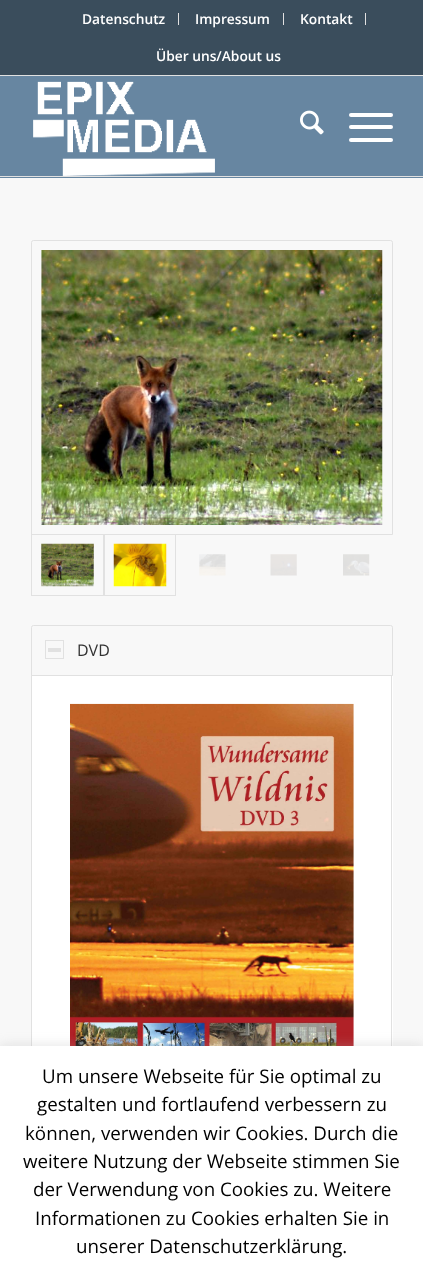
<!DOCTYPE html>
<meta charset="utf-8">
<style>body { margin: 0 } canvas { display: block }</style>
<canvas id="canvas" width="423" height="1275"></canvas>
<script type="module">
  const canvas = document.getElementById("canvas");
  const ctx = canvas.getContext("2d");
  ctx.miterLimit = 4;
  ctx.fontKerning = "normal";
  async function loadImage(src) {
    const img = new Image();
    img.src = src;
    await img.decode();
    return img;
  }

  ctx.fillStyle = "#f8f8f8";
  ctx.fillRect(0, 0, 423, 1275);
  ctx.fillStyle = "#3a4d5c";
  ctx.fillRect(0, 0, 423, 75);
  ctx.fillStyle = "#e1e1e1";
  ctx.fillRect(0, 75, 423, 1);
  ctx.fillRect(178, 13, 1, 12);
  ctx.font = "600 13.75px Open Sans";
  ctx.fillStyle = "#ffffff";
  ctx.fillText("Datenschutz", 82, 24);
  ctx.fillStyle = "#e1e1e1";
  ctx.fillRect(283, 13, 1, 12);
  ctx.fillStyle = "#ffffff";
  ctx.fillText("Impressum", 195, 24);
  ctx.fillStyle = "#e1e1e1";
  ctx.fillRect(365, 13, 1, 12);
  ctx.fillStyle = "#ffffff";
  ctx.fillText("Kontakt", 300, 24);
  ctx.fillText("Über uns/About us", 156, 61);
  ctx.fillStyle = "#6786a1";
  ctx.fillRect(0, 76, 423, 102);
  ctx.fillStyle = "#e1e1e1";
  ctx.fillRect(0, 176, 423, 1);
  ctx.drawImage(await loadImage("img1.png"), 33, 81, 182, 95);
  ctx.drawImage(await loadImage("img2.png"), 300, 110, 24, 25);
  ctx.fillStyle = "#ffffff";
  ctx.beginPath();
  ctx.roundRect(349, 125, 44, 4, 2);
  ctx.fill();
  ctx.beginPath();
  ctx.roundRect(349, 113, 44, 4, 2);
  ctx.fill();
  ctx.beginPath();
  ctx.roundRect(349, 138, 44, 4, 2);
  ctx.fill();
  ctx.beginPath();
  ctx.roundRect(31.5, 240.5, 361, 294, [2, 2, 0, 0]);
  ctx.strokeStyle = "#e1e1e1";
  ctx.stroke();
  ctx.drawImage(await loadImage("img3.png"), 41, 250, 342, 275);
  ctx.strokeRect(31.5, 534.5, 72, 61);
  ctx.drawImage(await loadImage("img4.png"), 41, 543, 53, 44);
  ctx.strokeRect(104.5, 534.5, 71, 61);
  ctx.drawImage(await loadImage("img5.png"), 113, 543, 54, 44);
  ctx.drawImage(await loadImage("img6.png"), 199, 554, 27, 22);
  ctx.drawImage(await loadImage("img7.png"), 270, 554, 27, 22);
  ctx.drawImage(await loadImage("img8.png"), 343, 554, 27, 22);
  ctx.fillRect(32, 676, 361, 370);
  ctx.fillStyle = "#e1e1e1";
  ctx.fillRect(391, 675, 1, 371);
  ctx.fillRect(31, 675, 1, 371);
  ctx.fillStyle = "#f8f8f8";
  ctx.beginPath();
  ctx.roundRect(31.5, 625.5, 361, 50, [2, 2, 0, 0]);
  ctx.fill();
  ctx.stroke();
  ctx.strokeRect(45.5, 640.5, 18, 18);
  ctx.fillStyle = "#e1e1e1";
  ctx.fillRect(48, 648, 13, 4);
  ctx.font = "16px Open Sans";
  ctx.fillStyle = "#333333";
  ctx.fillText("DVD", 77, 656);
  ctx.drawImage(await loadImage("img9.png"), 70, 703, 284, 343);
  ctx.fillStyle = "rgba(172, 171, 171, 0.3)";
  ctx.filter = "blur(6px)";
  ctx.beginPath();
  ctx.rect(0, 1045, 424, 229);
  ctx.fill();
  ctx.filter = "none";
  ctx.fillStyle = "#ffffff";
  ctx.fillRect(0, 1046, 423, 229);
  ctx.font = "18.75px Open Sans";
  ctx.fillStyle = "#000000";
  ctx.fillText("Um unsere Webseite für Sie optimal zu", 42, 1083);
  ctx.fillText("gestalten und fortlaufend verbessern zu", 37, 1111);
  ctx.fillText("können, verwenden wir Cookies. Durch die", 25, 1140);
  ctx.fillText("weitere Nutzung der Webseite stimmen Sie", 23, 1168);
  ctx.fillText("der Verwendung von Cookies zu. Weitere", 33, 1196);
  ctx.fillText("Informationen zu Cookies erhalten Sie in", 35, 1225);
  ctx.fillText("unserer Datenschutzerklärung.", 76, 1253);
</script>
